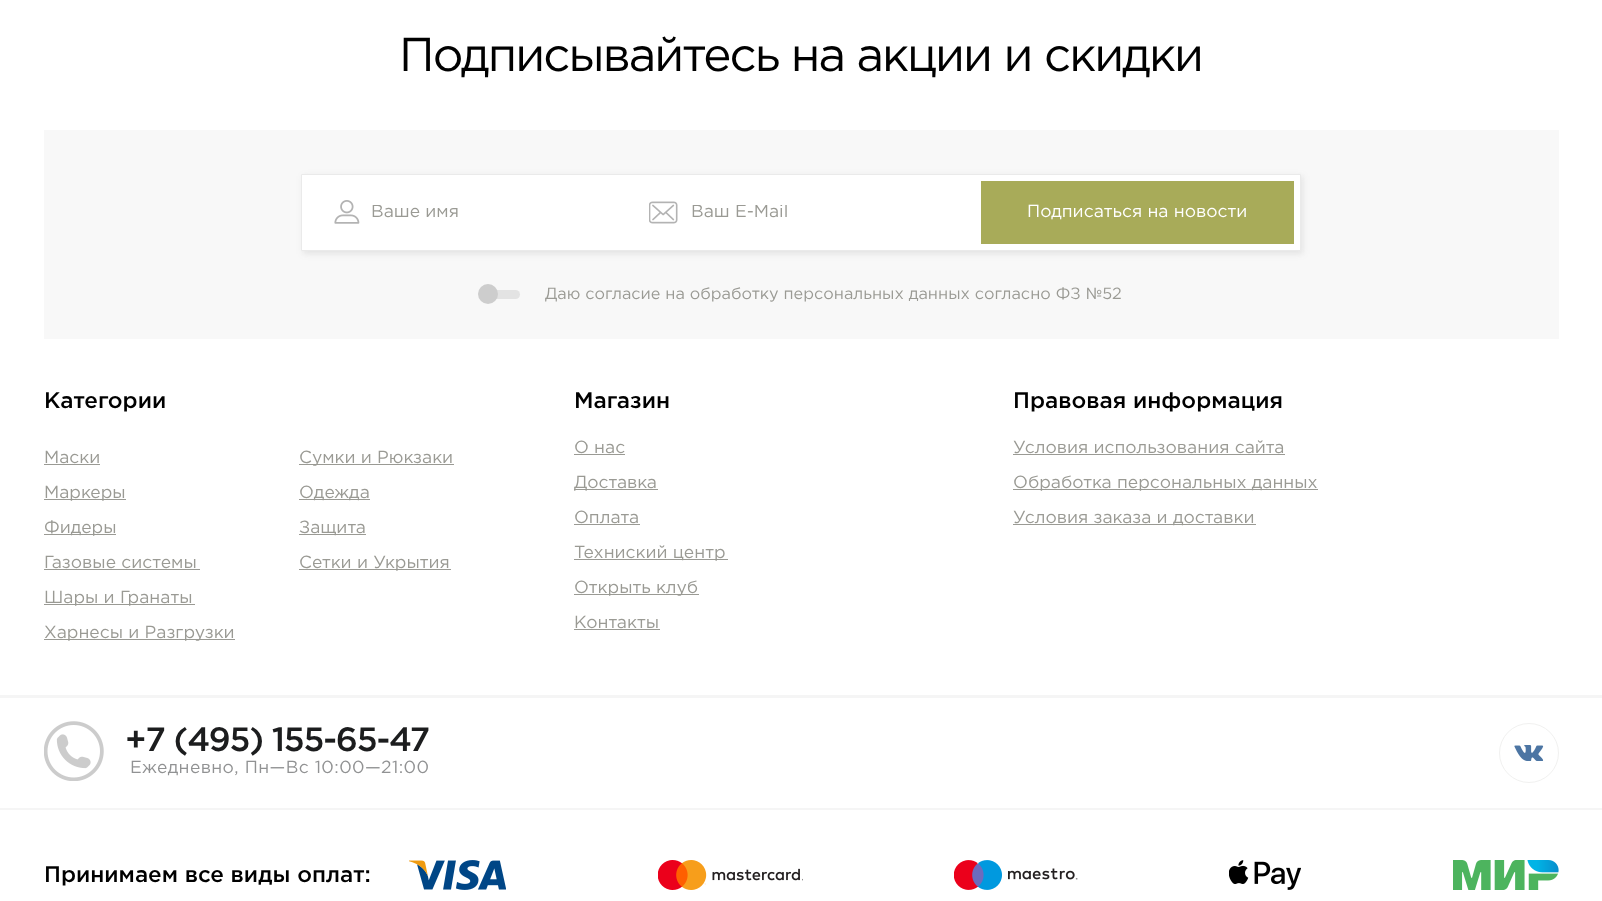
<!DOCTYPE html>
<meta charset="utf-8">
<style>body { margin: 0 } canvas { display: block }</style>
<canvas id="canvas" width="1602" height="901"></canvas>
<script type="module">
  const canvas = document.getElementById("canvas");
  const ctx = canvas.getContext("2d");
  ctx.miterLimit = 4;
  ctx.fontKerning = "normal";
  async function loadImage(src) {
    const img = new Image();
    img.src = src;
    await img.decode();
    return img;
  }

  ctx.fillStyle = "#f5f5f5";
  ctx.fillRect(0, 0, 1602, 901);
  ctx.fillStyle = "#ffffff";
  ctx.fillRect(0, 0, 1602, 695);
  ctx.letterSpacing = "-1.9px";
  ctx.font = "47.5px Gotham";
  ctx.fillStyle = "#000000";
  ctx.fillText("Подписывайтесь на акции и скидки", 399, 71);
  ctx.fillStyle = "#f8f8f8";
  ctx.fillRect(44, 130, 1515, 209);
  ctx.fillStyle = "rgba(89, 89, 92, 0.13)";
  ctx.filter = "blur(3px)";
  ctx.beginPath();
  ctx.rect(303, 176, 1000, 78);
  ctx.fill();
  ctx.filter = "none";
  ctx.fillStyle = "#ffffff";
  ctx.beginPath();
  ctx.rect(301.5, 174.5, 999, 76);
  ctx.fill();
  ctx.strokeStyle = "#eaeaea";
  ctx.stroke();
  ctx.drawImage(await loadImage("img1.png"), 334, 200, 26, 24);
  ctx.save();
  ctx.beginPath();
  ctx.rect(371, 205, 253, 16);
  ctx.clip();
  ctx.letterSpacing = "0px";
  ctx.font = "17.5px Gotham";
  ctx.fillStyle = "#9a9a94";
  ctx.fillText("Ваше имя", 371, 217);
  ctx.restore();
  ctx.drawImage(await loadImage("img2.png"), 649, 201, 29, 23);
  ctx.save();
  ctx.beginPath();
  ctx.rect(691, 205, 265, 16);
  ctx.clip();
  ctx.letterSpacing = "0px";
  ctx.font = "17.5px Gotham";
  ctx.fillStyle = "#9a9a94";
  ctx.fillText("Ваш E-Mail", 691, 217);
  ctx.restore();
  ctx.fillStyle = "#a8ab59";
  ctx.fillRect(981, 181, 313, 63);
  ctx.letterSpacing = "0px";
  ctx.font = "17.5px Gotham";
  ctx.fillStyle = "#ffffff";
  ctx.fillText("Подписаться на новости", 1027, 217);
  ctx.fillStyle = "#e3e3e3";
  ctx.beginPath();
  ctx.roundRect(480, 290, 40, 9, 4.5);
  ctx.fill();
  ctx.fillStyle = "#cdcdcd";
  ctx.beginPath();
  ctx.arc(488, 294, 10, 0, Math.PI * 2);
  ctx.fill();
  ctx.font = "16.25px Gotham";
  ctx.fillStyle = "#9a9a94";
  ctx.fillText("Даю согласие на обработку персональных данных согласно ФЗ №52", 545, 299);
  ctx.font = "500 22.5px Gotham";
  ctx.fillStyle = "#000000";
  ctx.fillText("Категории", 44, 408);
  ctx.font = "17.5px Gotham";
  ctx.fillStyle = "#9a9a94";
  ctx.fillText("Маски", 44, 463);
  ctx.fillRect(44, 464, 56, 1);
  ctx.fillRect(44, 499, 82, 1);
  ctx.fillText("Маркеры", 44, 498);
  ctx.fillRect(44, 534, 72, 1);
  ctx.fillText("Фидеры", 44, 533);
  ctx.fillText("Газовые системы", 44, 568);
  ctx.fillRect(44, 569, 156, 1);
  ctx.fillRect(44, 604, 151, 1);
  ctx.fillText("Шары и Гранаты", 44, 603);
  ctx.fillRect(44, 639, 191, 1);
  ctx.fillText("Харнесы и Разгрузки", 44, 638);
  ctx.fillRect(299, 464, 155, 1);
  ctx.fillText("Сумки и Рюкзаки", 299, 463);
  ctx.fillRect(299, 499, 71, 1);
  ctx.fillText("Одежда", 299, 498);
  ctx.fillRect(299, 534, 67, 1);
  ctx.fillText("Защита", 299, 533);
  ctx.fillRect(299, 569, 152, 1);
  ctx.fillText("Сетки и Укрытия", 299, 568);
  ctx.font = "500 22.5px Gotham";
  ctx.fillStyle = "#000000";
  ctx.fillText("Магазин", 574, 408);
  ctx.font = "17.5px Gotham";
  ctx.fillStyle = "#9a9a94";
  ctx.fillText("О нас", 574, 453);
  ctx.fillRect(574, 454, 51, 1);
  ctx.fillRect(574, 489, 84, 1);
  ctx.fillText("Доставка", 574, 488);
  ctx.fillText("Оплата", 574, 523);
  ctx.fillRect(574, 524, 66, 1);
  ctx.fillRect(574, 559, 154, 1);
  ctx.fillText("Техниский центр", 574, 558);
  ctx.fillRect(574, 594, 125, 1);
  ctx.fillText("Открыть клуб", 574, 593);
  ctx.fillText("Контакты", 574, 628);
  ctx.fillRect(574, 629, 86, 1);
  ctx.font = "500 22.5px Gotham";
  ctx.fillStyle = "#000000";
  ctx.fillText("Правовая информация", 1013, 408);
  ctx.font = "17.5px Gotham";
  ctx.fillStyle = "#9a9a94";
  ctx.fillText("Условия использования сайта", 1013, 453);
  ctx.fillRect(1013, 454, 272, 1);
  ctx.fillRect(1013, 489, 305, 1);
  ctx.fillText("Обработка персональных данных", 1013, 488);
  ctx.fillRect(1013, 524, 243, 1);
  ctx.fillText("Условия заказа и доставки", 1013, 523);
  ctx.fillStyle = "#ffffff";
  ctx.fillRect(0, 698, 1602, 110);
  ctx.drawImage(await loadImage("img3.png"), 44, 721, 60, 60);
  ctx.letterSpacing = "-1.25px";
  ctx.font = "500 33.75px Gotham";
  ctx.fillStyle = "#1c1d1e";
  ctx.fillText("+7 (495) 155-65-47", 125, 751);
  ctx.letterSpacing = "0.4px";
  ctx.font = "17.5px Gotham";
  ctx.fillStyle = "#919293";
  ctx.fillText("Ежедневно, Пн—Вс 10:00—21:00", 130, 773);
  ctx.beginPath();
  ctx.arc(1529, 753, 29.5, 0, Math.PI * 2);
  ctx.strokeStyle = "#f1f1f0";
  ctx.stroke();
  ctx.drawImage(await loadImage("img4.png"), 1514, 745, 30, 16);
  ctx.fillStyle = "#ffffff";
  ctx.fillRect(0, 810, 1602, 91);
  ctx.letterSpacing = "0px";
  ctx.font = "500 22.5px Gotham";
  ctx.fillStyle = "#000000";
  ctx.fillText("Принимаем все виды оплат:", 44, 882);
  ctx.drawImage(await loadImage("img5.png"), 409, 860, 97, 30);
  ctx.drawImage(await loadImage("img6.png"), 658, 860, 145, 30);
  ctx.drawImage(await loadImage("img7.png"), 954, 860, 124, 30);
  ctx.drawImage(await loadImage("img8.png"), 1229, 860, 72, 30);
  ctx.drawImage(await loadImage("img9.png"), 1453, 860, 106, 30);
</script>
